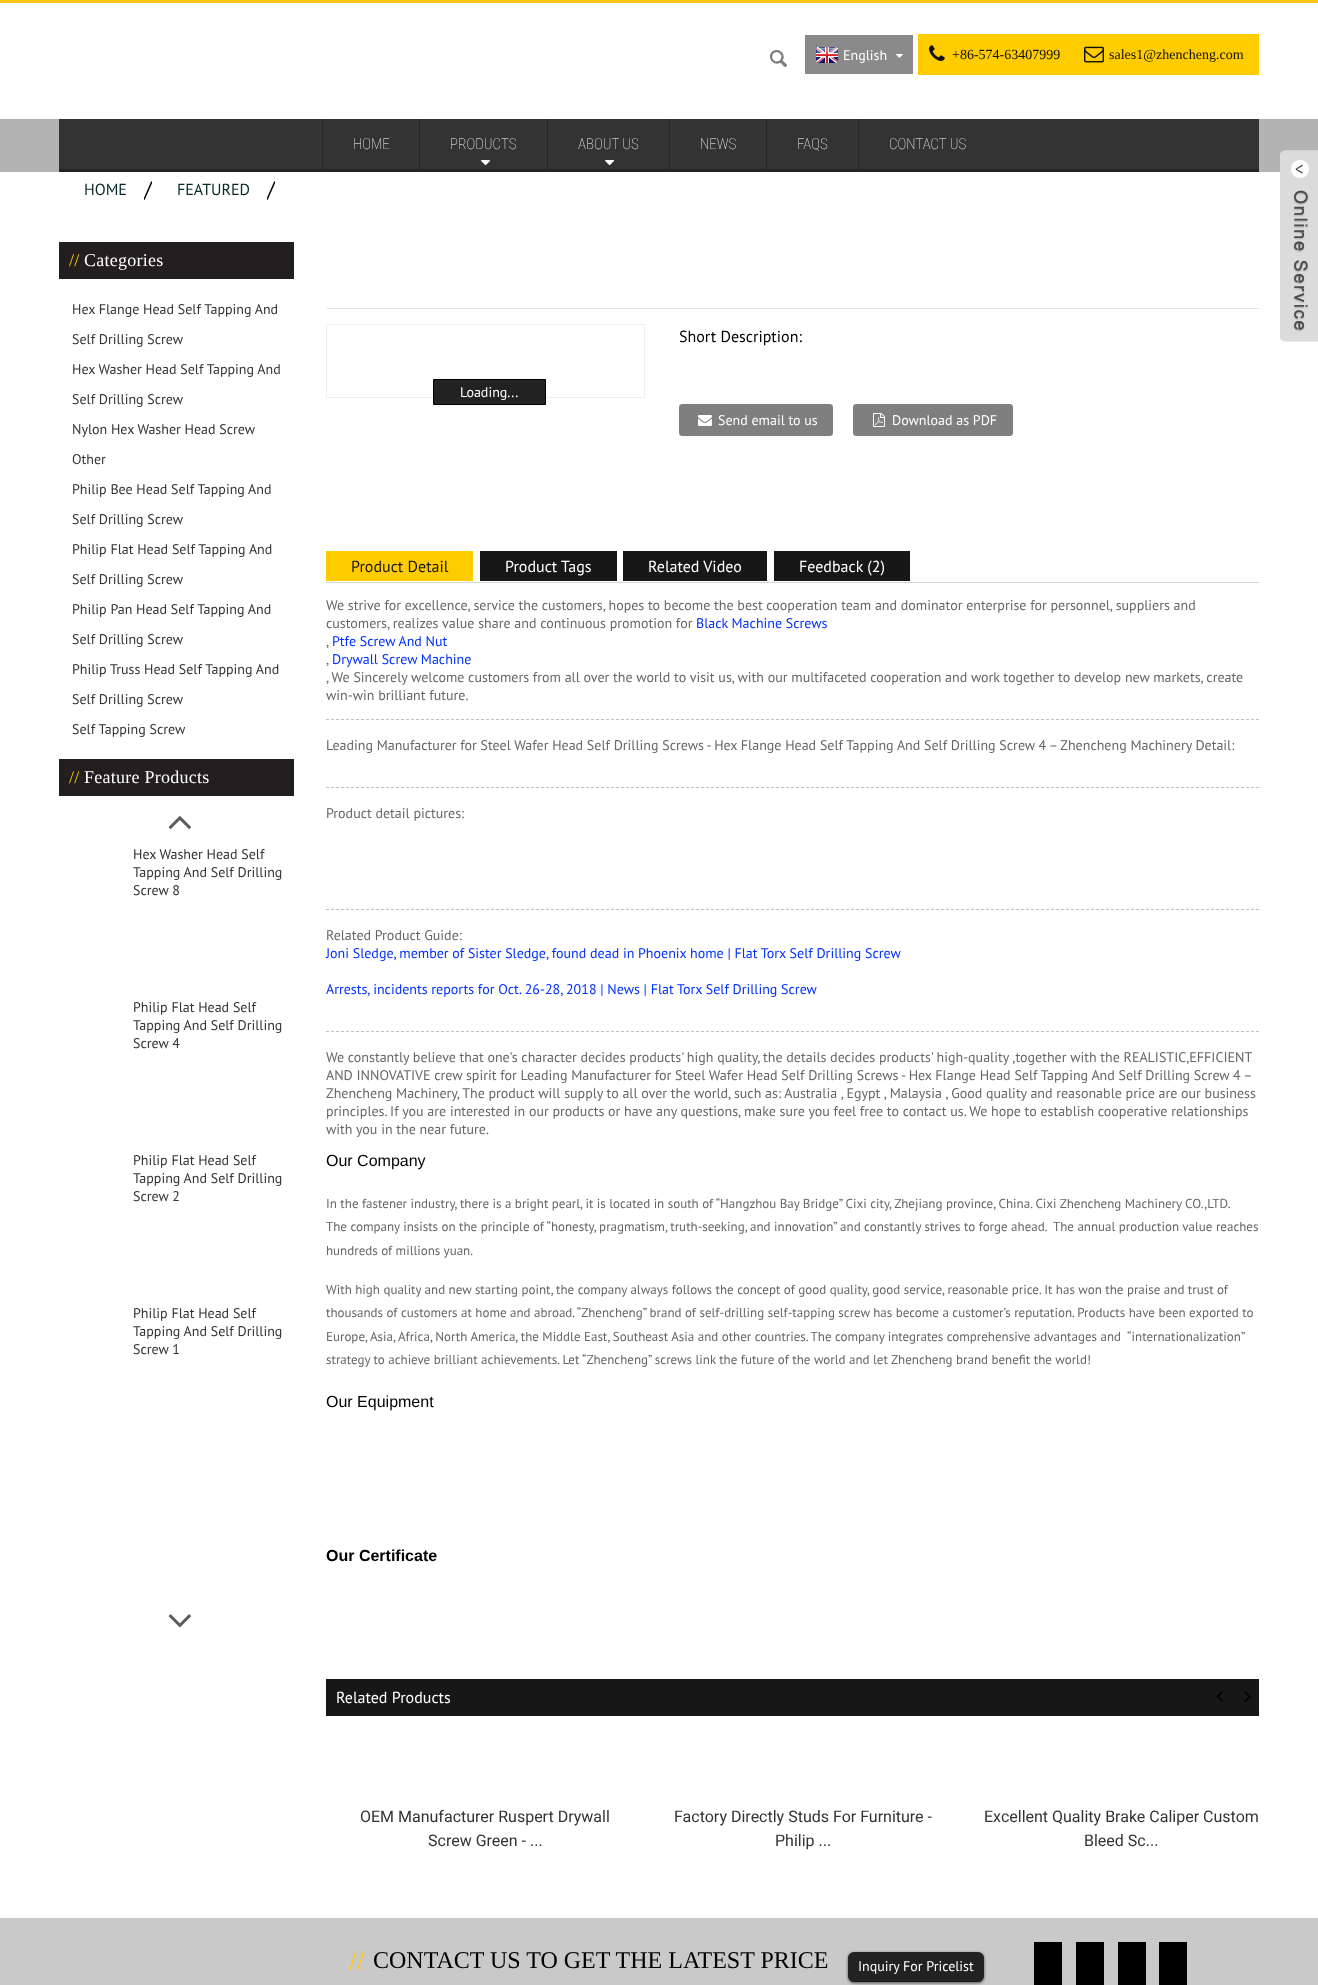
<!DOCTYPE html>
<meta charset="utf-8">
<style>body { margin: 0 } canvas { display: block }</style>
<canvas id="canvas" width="1318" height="1985"></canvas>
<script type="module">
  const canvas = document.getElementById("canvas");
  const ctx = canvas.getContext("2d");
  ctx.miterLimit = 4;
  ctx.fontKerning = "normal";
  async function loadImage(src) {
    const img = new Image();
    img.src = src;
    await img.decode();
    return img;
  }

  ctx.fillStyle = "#ffffff";
  ctx.fillRect(0, 0, 1318, 1985);
  ctx.fillStyle = "#fec214";
  ctx.fillRect(0, 0, 1318, 3);
  ctx.drawImage(await loadImage("img1.png"), 770, 50, 17, 17);
  ctx.fillStyle = "#8a8a8a";
  ctx.fillRect(805, 35, 108, 39);
  ctx.drawImage(await loadImage("img2.png"), 816, 47, 22, 16);
  ctx.font = "14px PT Sans";
  ctx.fillStyle = "#ffffff";
  ctx.fillText("English", 843, 60);
  ctx.drawImage(await loadImage("img3.png"), 896, 54, 7, 4);
  ctx.fillStyle = "#ffcc00";
  ctx.fillRect(918, 34, 341, 41);
  ctx.drawImage(await loadImage("img4.png"), 929, 45, 16, 16);
  ctx.font = "14px Liberation Serif";
  ctx.fillStyle = "#111111";
  ctx.fillText("+86-574-63407999", 952, 59);
  ctx.drawImage(await loadImage("img5.png"), 1084, 46, 20, 17);
  ctx.fillText("sales1@zhencheng.com", 1109, 59);
  ctx.fillStyle = "#b3b3b3";
  ctx.fillRect(0, 119, 1318, 53);
  ctx.fillStyle = "#333333";
  ctx.fillRect(59, 119, 1200, 50);
  ctx.fillStyle = "#262523";
  ctx.fillRect(59, 169, 1200, 3);
  ctx.fillRect(322, 119, 1, 50);
  ctx.font = "100 15px Roboto Condensed";
  ctx.fillStyle = "#ffffff";
  ctx.fillText("HOME", 353, 149);
  ctx.fillStyle = "#262523";
  ctx.fillRect(419, 119, 1, 50);
  ctx.fillStyle = "#ffffff";
  ctx.fillText("PRODUCTS", 450, 149);
  ctx.drawImage(await loadImage("img6.png"), 481, 160, 10, 6);
  ctx.fillStyle = "#262523";
  ctx.fillRect(547, 119, 1, 50);
  ctx.fillStyle = "#ffffff";
  ctx.fillText("ABOUT US", 578, 149);
  ctx.drawImage(await loadImage("img6.png"), 605, 160, 10, 6);
  ctx.fillStyle = "#262523";
  ctx.fillRect(669, 119, 1, 50);
  ctx.fillStyle = "#ffffff";
  ctx.fillText("NEWS", 700, 149);
  ctx.fillStyle = "#262523";
  ctx.fillRect(766, 119, 1, 50);
  ctx.fillStyle = "#ffffff";
  ctx.fillText("FAQS", 797, 149);
  ctx.fillStyle = "#262523";
  ctx.fillRect(858, 119, 1, 50);
  ctx.fillStyle = "#ffffff";
  ctx.fillText("CONTACT US", 889, 149);
  ctx.font = "16px PT Sans";
  ctx.fillStyle = "#08292b";
  ctx.fillText("HOME", 84, 195);
  ctx.save();
  ctx.beginPath();
  ctx.rect(144, 172, 8, 35);
  ctx.clip();
  ctx.font = "22px PT Sans";
  ctx.fillStyle = "#000000";
  ctx.fillText("/", 144, 197);
  ctx.restore();
  ctx.fillText("FEATURED", 177, 195);
  ctx.save();
  ctx.beginPath();
  ctx.rect(267, 172, 8, 35);
  ctx.clip();
  ctx.font = "22px PT Sans";
  ctx.fillStyle = "#000000";
  ctx.fillText("/", 267, 197);
  ctx.restore();
  ctx.drawImage(await loadImage("img7.png"), 1280, 150, 38, 192);
  ctx.fillStyle = "#231f20";
  ctx.fillRect(59, 242, 235, 37);
  ctx.letterSpacing = "0.25px";
  ctx.font = "18px Liberation Serif";
  ctx.fillStyle = "#ffcc00";
  ctx.fillText("//", 69, 266);
  ctx.fillStyle = "#ffffff";
  ctx.fillText("Categories", 84, 266);
  ctx.letterSpacing = "0px";
  ctx.font = "14px PT Sans";
  ctx.fillStyle = "#333333";
  ctx.fillText("Hex Flange Head Self Tapping And", 72, 314);
  ctx.fillText("Self Drilling Screw", 72, 344);
  ctx.fillText("Hex Washer Head Self Tapping And", 72, 374);
  ctx.fillText("Self Drilling Screw", 72, 404);
  ctx.fillText("Nylon Hex Washer Head Screw", 72, 434);
  ctx.fillText("Other", 72, 464);
  ctx.fillText("Philip Bee Head Self Tapping And", 72, 494);
  ctx.fillText("Self Drilling Screw", 72, 524);
  ctx.fillText("Philip Flat Head Self Tapping And", 72, 554);
  ctx.fillText("Self Drilling Screw", 72, 584);
  ctx.fillText("Philip Pan Head Self Tapping And", 72, 614);
  ctx.fillText("Self Drilling Screw", 72, 644);
  ctx.fillText("Philip Truss Head Self Tapping And", 72, 674);
  ctx.fillText("Self Drilling Screw", 72, 704);
  ctx.fillText("Self Tapping Screw", 72, 734);
  ctx.fillStyle = "#231f20";
  ctx.fillRect(59, 759, 235, 37);
  ctx.letterSpacing = "0.25px";
  ctx.font = "18px Liberation Serif";
  ctx.fillStyle = "#ffcc00";
  ctx.fillText("//", 69, 783);
  ctx.fillStyle = "#ffffff";
  ctx.fillText("Feature Products", 84, 783);
  ctx.drawImage(await loadImage("img8.png"), 168, 816, 23, 13);
  ctx.letterSpacing = "0px";
  ctx.font = "14px PT Sans";
  ctx.fillStyle = "#333333";
  ctx.fillText("Hex Washer Head Self", 133, 859);
  ctx.fillText("Tapping And Self Drilling", 133, 877);
  ctx.fillText("Screw 8", 133, 895);
  ctx.fillText("Philip Flat Head Self", 133, 1012);
  ctx.fillText("Tapping And Self Drilling", 133, 1030);
  ctx.fillText("Screw 4", 133, 1048);
  ctx.fillText("Philip Flat Head Self", 133, 1165);
  ctx.fillText("Tapping And Self Drilling", 133, 1183);
  ctx.fillText("Screw 2", 133, 1201);
  ctx.fillText("Philip Flat Head Self", 133, 1318);
  ctx.fillText("Tapping And Self Drilling", 133, 1336);
  ctx.fillText("Screw 1", 133, 1354);
  ctx.drawImage(await loadImage("img9.png"), 168, 1614, 23, 14);
  ctx.fillStyle = "#e5e5e5";
  ctx.fillRect(326, 308, 933, 1);
  ctx.strokeStyle = "#eeeeee";
  ctx.strokeRect(326.5, 324.5, 318, 73);
  ctx.fillStyle = "#222222";
  ctx.beginPath();
  ctx.rect(433.5, 379.5, 112, 25);
  ctx.fill();
  ctx.strokeStyle = "#000000";
  ctx.stroke();
  ctx.fillStyle = "#ffffff";
  ctx.fillText("Loading...", 460, 397);
  ctx.font = "16px PT Sans";
  ctx.fillStyle = "#000000";
  ctx.fillText("Short Description:", 679, 342);
  ctx.fillStyle = "#7f7f7f";
  ctx.beginPath();
  ctx.roundRect(679.5, 404.5, 153, 31, 2.5);
  ctx.fill();
  ctx.strokeStyle = "#7f7f7f";
  ctx.stroke();
  ctx.drawImage(await loadImage("img10.png"), 698, 415, 14, 11);
  ctx.font = "14px PT Sans";
  ctx.fillStyle = "#ffffff";
  ctx.fillText("Send email to us", 718, 425);
  ctx.fillStyle = "#7f7f7f";
  ctx.beginPath();
  ctx.roundRect(853.5, 404.5, 159, 31, 2.5);
  ctx.fill();
  ctx.stroke();
  ctx.drawImage(await loadImage("img11.png"), 873, 413, 12, 14);
  ctx.fillStyle = "#ffffff";
  ctx.fillText("Download as PDF", 892, 425);
  ctx.fillStyle = "#ffcc00";
  ctx.fillRect(326, 551, 147, 30);
  ctx.font = "16px PT Sans";
  ctx.fillStyle = "#171717";
  ctx.fillText("Product Detail", 351, 572);
  ctx.fillRect(480, 551, 137, 30);
  ctx.fillStyle = "#ffffff";
  ctx.fillText("Product Tags", 505, 572);
  ctx.fillStyle = "#171717";
  ctx.fillRect(623, 551, 144, 30);
  ctx.fillStyle = "#ffffff";
  ctx.fillText("Related Video", 648, 572);
  ctx.fillStyle = "#171717";
  ctx.fillRect(774, 551, 136, 30);
  ctx.fillStyle = "#ffffff";
  ctx.fillText("Feedback (2)", 799, 572);
  ctx.fillStyle = "#d5d5d5";
  ctx.fillRect(326, 582, 933, 1);
  ctx.font = "14px PT Sans";
  ctx.fillStyle = "#666666";
  ctx.fillText("We strive for excellence, service the customers, hopes to become the best cooperation team and dominator enterprise for personnel, suppliers and", 326, 610);
  ctx.fillText("customers, realizes value share and continuous promotion for", 326, 628);
  ctx.fillStyle = "#0030ff";
  ctx.fillText("Black Machine Screws", 696, 628);
  ctx.fillStyle = "#666666";
  ctx.fillText(",", 326, 646);
  ctx.fillStyle = "#0030ff";
  ctx.fillText("Ptfe Screw And Nut", 332, 646);
  ctx.fillStyle = "#666666";
  ctx.fillText(",", 326, 664);
  ctx.fillStyle = "#0030ff";
  ctx.fillText("Drywall Screw Machine", 332, 664);
  ctx.fillStyle = "#666666";
  ctx.fillText(", We Sincerely welcome customers from all over the world to visit us, with our multifaceted cooperation and work together to develop new markets, create", 326, 682);
  ctx.fillText("win-win brilliant future.", 326, 700);
  ctx.beginPath();
  ctx.moveTo(326, 719.5);
  ctx.lineTo(1259, 719.5);
  ctx.strokeStyle = "#c1c1c1";
  ctx.setLineDash([3, 2]);
  ctx.stroke();
  ctx.fillText("Leading Manufacturer for Steel Wafer Head Self Drilling Screws - Hex Flange Head Self Tapping And Self Drilling Screw 4 – Zhencheng Machinery Detail:", 326, 750);
  ctx.beginPath();
  ctx.moveTo(326, 787.5);
  ctx.lineTo(1259, 787.5);
  ctx.stroke();
  ctx.fillText("Product detail pictures:", 326, 818);
  ctx.beginPath();
  ctx.moveTo(326, 909.5);
  ctx.lineTo(1259, 909.5);
  ctx.stroke();
  ctx.fillText("Related Product Guide:", 326, 940);
  ctx.fillStyle = "#0030ff";
  ctx.fillText("Joni Sledge, member of Sister Sledge, found dead in Phoenix home | Flat Torx Self Drilling Screw", 326, 958);
  ctx.fillText("Arrests, incidents reports for Oct. 26-28, 2018 | News | Flat Torx Self Drilling Screw", 326, 994);
  ctx.beginPath();
  ctx.moveTo(326, 1031.5);
  ctx.lineTo(1259, 1031.5);
  ctx.stroke();
  ctx.fillStyle = "#666666";
  ctx.fillText("We constantly believe that one's character decides products' high quality, the details decides products' high-quality ,together with the REALISTIC,EFFICIENT", 326, 1062);
  ctx.fillText("AND INNOVATIVE crew spirit for Leading Manufacturer for Steel Wafer Head Self Drilling Screws - Hex Flange Head Self Tapping And Self Drilling Screw 4 –", 326, 1080);
  ctx.fillText("Zhencheng Machinery, The product will supply to all over the world, such as: Australia , Egypt , Malaysia , Good quality and reasonable price are our business", 326, 1098);
  ctx.fillText("principles. If you are interested in our products or have any questions, make sure you feel free to contact us. We hope to establish cooperative relationships", 326, 1116);
  ctx.fillText("with you in the near future.", 326, 1134);
  ctx.font = "16px Liberation Sans";
  ctx.fillStyle = "#000000";
  ctx.fillText("Our Company", 326, 1166);
  ctx.font = "13px PT Sans";
  ctx.fillStyle = "#666666";
  ctx.fillText("In the fastener industry, there is a bright pearl, it is located in south of “Hangzhou Bay Bridge” Cixi city, Zhejiang province, China. Cixi Zhencheng Machinery CO.,LTD.", 326, 1208);
  ctx.fillText("The company insists on the principle of “honesty, pragmatism, truth-seeking, and innovation” and constantly strives to forge ahead.  The annual production value reaches", 326, 1231);
  ctx.fillText("hundreds of millions yuan.", 326, 1255);
  ctx.fillText("With high quality and new starting point, the company always follows the concept of good quality, good service, reasonable price. It has won the praise and trust of", 326, 1294);
  ctx.fillText("thousands of customers at home and abroad. “Zhencheng” brand of self-drilling self-tapping screw has become a customer’s reputation. Products have been exported to", 326, 1317);
  ctx.fillText("Europe, Asia, Africa, North America, the Middle East, Southeast Asia and other countries. The company integrates comprehensive advantages and  “internationalization”", 326, 1341);
  ctx.fillText("strategy to achieve brilliant achievements. Let “Zhencheng” screws link the future of the world and let Zhencheng brand benefit the world!", 326, 1364);
  ctx.font = "16px Liberation Sans";
  ctx.fillStyle = "#000000";
  ctx.fillText("Our Equipment", 326, 1407);
  ctx.font = "bold 16px Liberation Sans";
  ctx.fillText("Our Certificate", 326, 1561);
  ctx.fillStyle = "#171717";
  ctx.fillRect(326, 1679, 933, 37);
  ctx.font = "16px PT Sans";
  ctx.fillStyle = "#ffffff";
  ctx.fillText("Related Products", 336, 1703);
  ctx.drawImage(await loadImage("img12.png"), 1216, 1691, 7, 11);
  ctx.drawImage(await loadImage("img13.png"), 1244, 1691, 7, 11);
  ctx.font = "16px Roboto";
  ctx.fillStyle = "#333333";
  ctx.fillText("OEM Manufacturer Ruspert Drywall", 360, 1822);
  ctx.fillText("Screw Green - ...", 428, 1846);
  ctx.fillText("Factory Directly Studs For Furniture -", 674, 1822);
  ctx.fillText("Philip ...", 775, 1846);
  ctx.fillText("Excellent Quality Brake Caliper Custom", 984, 1822);
  ctx.fillText("Bleed Sc...", 1084, 1846);
  ctx.fillStyle = "#c9c9c9";
  ctx.fillRect(0, 1918, 1318, 67);
  ctx.font = "28px Liberation Serif";
  ctx.fillStyle = "#ffcc00";
  ctx.fillText("//", 349, 1970);
  ctx.font = "24px Liberation Serif";
  ctx.fillStyle = "#000000";
  ctx.fillText("CONTACT US TO GET THE LATEST PRICE", 373, 1968);
  ctx.fillStyle = "rgba(0, 0, 0, 0.6)";
  ctx.filter = "blur(1.5px)";
  ctx.beginPath();
  ctx.roundRect(848, 1953, 136, 30, 6);
  ctx.fill();
  ctx.filter = "none";
  ctx.fillStyle = "#222222";
  ctx.beginPath();
  ctx.roundRect(848, 1952, 136, 30, 6);
  ctx.fill();
  ctx.fillStyle = "rgba(0, 0, 0, 0.25)";
  ctx.fillRect(851, 1981, 130, 1);
  ctx.font = "14px PT Sans";
  ctx.fillStyle = "#ffffff";
  ctx.fillText("Inquiry For Pricelist", 858, 1971);
  ctx.fillStyle = "#000000";
  ctx.fillRect(1034, 1942, 28, 43);
  ctx.fillRect(1076, 1942, 28, 43);
  ctx.fillRect(1118, 1942, 28, 43);
  ctx.fillRect(1159, 1942, 28, 43);
</script>
